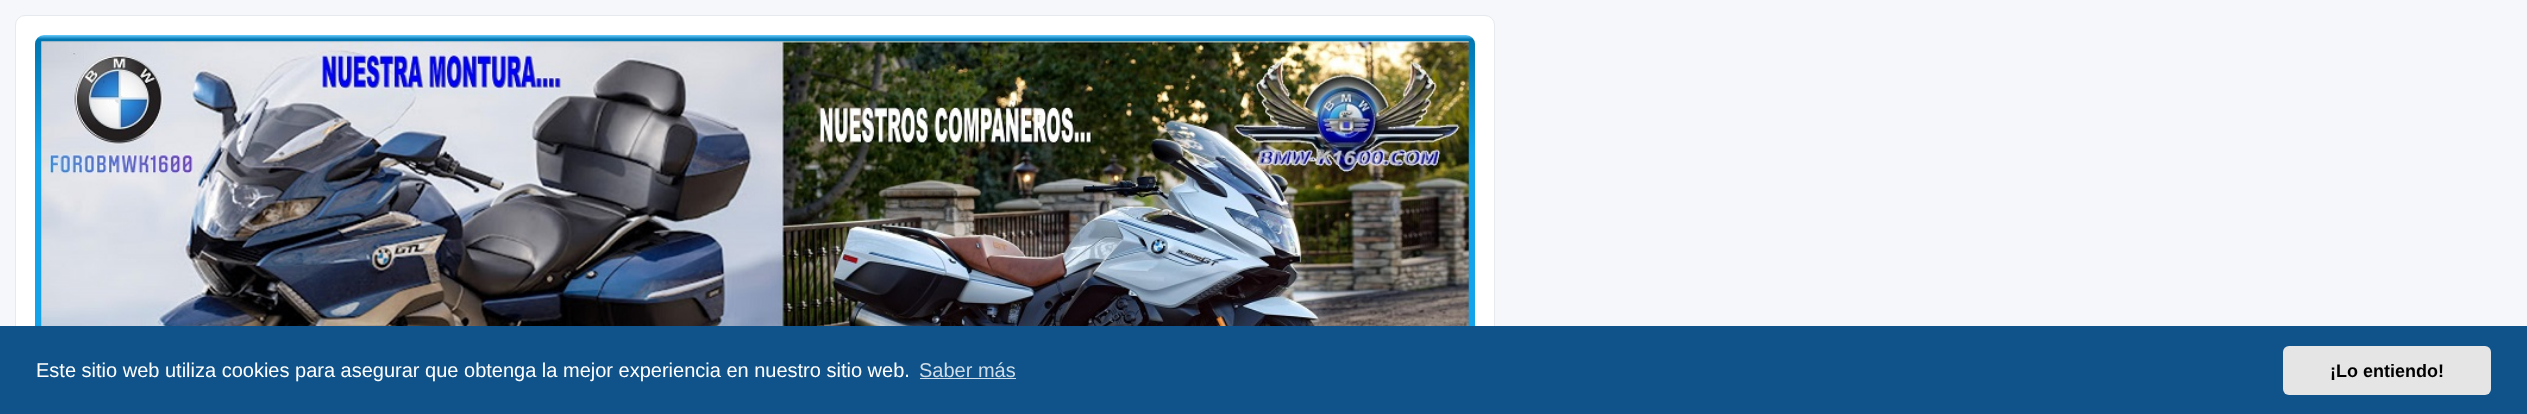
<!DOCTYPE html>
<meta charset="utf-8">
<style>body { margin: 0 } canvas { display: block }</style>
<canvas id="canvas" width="2527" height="414"></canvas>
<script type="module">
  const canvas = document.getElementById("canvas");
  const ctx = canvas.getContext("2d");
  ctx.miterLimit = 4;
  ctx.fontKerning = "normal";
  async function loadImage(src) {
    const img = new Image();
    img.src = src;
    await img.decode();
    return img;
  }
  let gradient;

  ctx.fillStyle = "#f5f7fa";
  ctx.fillRect(0, 0, 2527, 414);
  ctx.fillStyle = "#ffffff";
  ctx.beginPath();
  ctx.roundRect(15.5, 15.5, 1479, 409, 9.5);
  ctx.fill();
  ctx.strokeStyle = "#e6e9ed";
  ctx.stroke();
  gradient = ctx.createLinearGradient(755, 35, 755, 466);
  gradient.addColorStop(0, "#6aceff");
  gradient.addColorStop(0.01, "#0076b1");
  gradient.addColorStop(0.27, "#12a3eb");
  gradient.addColorStop(1, "#12a3eb");
  ctx.fillStyle = gradient;
  ctx.beginPath();
  ctx.roundRect(35, 35, 1440, 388, 9);
  ctx.fill();
  ctx.drawImage(await loadImage("img1.png"), 41, 41, 1428, 285);
  ctx.fillStyle = "#0f538a";
  ctx.fillRect(0, 326, 2527, 88);
  ctx.font = "20px Liberation Sans";
  ctx.fillStyle = "#ffffff";
  ctx.fillText("Este sitio web utiliza cookies para asegurar que obtenga la mejor experiencia en nuestro sitio web.", 36, 377);
  ctx.fillStyle = "#cfdde8";
  ctx.fillText("Saber más", 919, 377);
  ctx.fillRect(920, 378, 96, 1);
  ctx.fillStyle = "#e5e5e5";
  ctx.beginPath();
  ctx.roundRect(2283, 346, 208, 49, 6);
  ctx.fill();
  ctx.font = "bold 18px Liberation Sans";
  ctx.fillStyle = "#000000";
  ctx.fillText("¡Lo entiendo!", 2330, 377);
</script>
